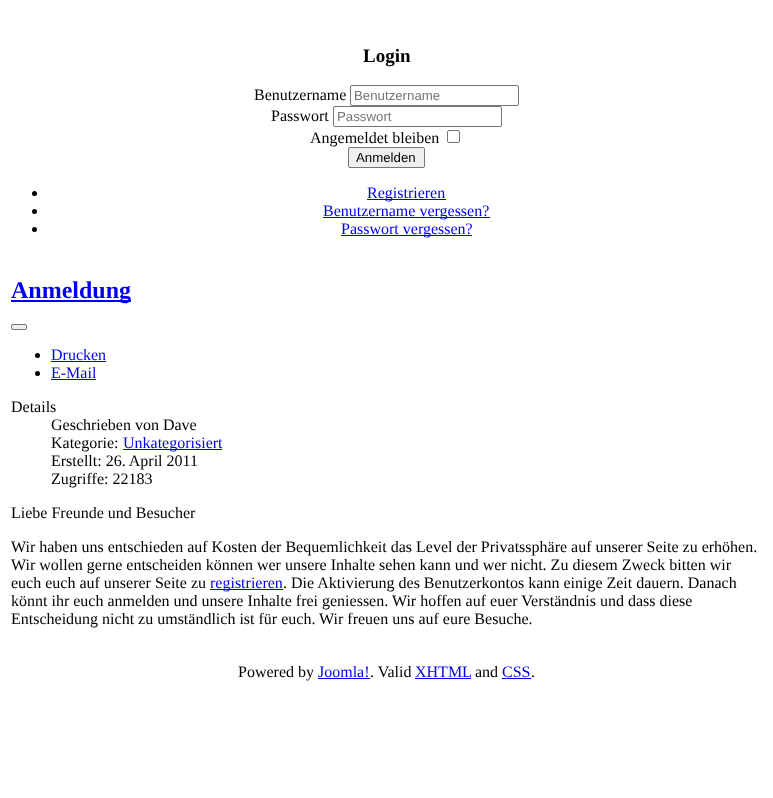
<!DOCTYPE html>
<meta charset="utf-8">
<style>body { margin: 0 } canvas { display: block }</style>
<canvas id="canvas" width="773" height="798"></canvas>
<script type="module">
  const canvas = document.getElementById("canvas");
  const ctx = canvas.getContext("2d");
  ctx.miterLimit = 4;
  ctx.fontKerning = "normal";

  ctx.fillStyle = "#ffffff";
  ctx.fillRect(0, 0, 773, 798);
  ctx.font = "bold 19px Liberation Serif";
  ctx.fillStyle = "#000000";
  ctx.fillText("Login", 363, 62);
  ctx.font = "16px Liberation Serif";
  ctx.fillText("Benutzername", 254, 100);
  ctx.beginPath();
  ctx.roundRect(350.5, 85.5, 168, 20, 1.5);
  ctx.strokeStyle = "#767676";
  ctx.stroke();
  ctx.font = "13.25px Liberation Sans";
  ctx.fillStyle = "#757575";
  ctx.fillText("Benutzername", 354, 100);
  ctx.font = "16px Liberation Serif";
  ctx.fillStyle = "#000000";
  ctx.fillText("Passwort", 271, 121);
  ctx.beginPath();
  ctx.roundRect(333.5, 106.5, 168, 20, 1.5);
  ctx.stroke();
  ctx.font = "13.25px Liberation Sans";
  ctx.fillStyle = "#757575";
  ctx.fillText("Passwort", 337, 121);
  ctx.font = "16px Liberation Serif";
  ctx.fillStyle = "#000000";
  ctx.fillText("Angemeldet bleiben", 310, 143);
  ctx.beginPath();
  ctx.roundRect(447.5, 130.5, 12, 12, 1.5);
  ctx.stroke();
  ctx.fillStyle = "#efefef";
  ctx.beginPath();
  ctx.roundRect(348.5, 147.5, 76, 20, 1.5);
  ctx.fill();
  ctx.stroke();
  ctx.font = "13.25px Liberation Sans";
  ctx.fillStyle = "#000000";
  ctx.fillText("Anmelden", 356, 162);
  ctx.beginPath();
  ctx.arc(34.5, 193.5, 2.5, 0, Math.PI * 2);
  ctx.fill();
  ctx.fillStyle = "#0000ee";
  ctx.fillRect(367, 199, 79, 1);
  ctx.font = "16px Liberation Serif";
  ctx.fillText("Registrieren", 367, 198);
  ctx.fillStyle = "#000000";
  ctx.beginPath();
  ctx.arc(34.5, 211.5, 2.5, 0, Math.PI * 2);
  ctx.fill();
  ctx.fillStyle = "#0000ee";
  ctx.fillRect(323, 217, 167, 1);
  ctx.fillText("Benutzername vergessen?", 323, 216);
  ctx.fillStyle = "#000000";
  ctx.beginPath();
  ctx.arc(34.5, 229.5, 2.5, 0, Math.PI * 2);
  ctx.fill();
  ctx.fillStyle = "#0000ee";
  ctx.fillRect(341, 235, 131, 1);
  ctx.fillText("Passwort vergessen?", 341, 234);
  ctx.fillRect(11, 300, 120, 2);
  ctx.font = "bold 24px Liberation Serif";
  ctx.fillText("Anmeldung", 11, 298);
  ctx.fillStyle = "#efefef";
  ctx.beginPath();
  ctx.roundRect(11.5, 324.5, 15, 5, 1.5);
  ctx.fill();
  ctx.stroke();
  ctx.fillStyle = "#000000";
  ctx.beginPath();
  ctx.arc(37.5, 355.5, 2.5, 0, Math.PI * 2);
  ctx.fill();
  ctx.font = "16px Liberation Serif";
  ctx.fillStyle = "#0000ee";
  ctx.fillText("Drucken", 51, 360);
  ctx.fillRect(51, 361, 55, 1);
  ctx.fillStyle = "#000000";
  ctx.beginPath();
  ctx.arc(37.5, 373.5, 2.5, 0, Math.PI * 2);
  ctx.fill();
  ctx.fillStyle = "#0000ee";
  ctx.fillText("E-Mail", 51, 378);
  ctx.fillRect(51, 379, 45, 1);
  ctx.fillStyle = "#000000";
  ctx.fillText("Details", 11, 412);
  ctx.fillText("Geschrieben von Dave", 51, 430);
  ctx.fillText("Kategorie:", 51, 448);
  ctx.fillStyle = "#0000ee";
  ctx.fillRect(123, 449, 99, 1);
  ctx.fillText("Unkategorisiert", 123, 448);
  ctx.fillStyle = "#000000";
  ctx.fillText("Erstellt: 26. April 2011", 51, 466);
  ctx.fillText("Zugriffe: 22183", 51, 484);
  ctx.fillText("Liebe Freunde und Besucher", 11, 518);
  ctx.fillText("Wir haben uns entschieden auf Kosten der Bequemlichkeit das Level der Privatssphäre auf unserer Seite zu erhöhen.", 11, 552);
  ctx.fillText("Wir wollen gerne entscheiden können wer unsere Inhalte sehen kann und wer nicht. Zu diesem Zweck bitten wir", 11, 570);
  ctx.fillText("euch euch auf unserer Seite zu", 11, 588);
  ctx.fillStyle = "#0000ee";
  ctx.fillRect(210, 589, 73, 1);
  ctx.fillText("registrieren", 210, 588);
  ctx.fillStyle = "#000000";
  ctx.fillText(". Die Aktivierung des Benutzerkontos kann einige Zeit dauern. Danach", 283, 588);
  ctx.fillText("könnt ihr euch anmelden und unsere Inhalte frei geniessen. Wir hoffen auf euer Verständnis und dass diese", 11, 606);
  ctx.fillText("Entscheidung nicht zu umständlich ist für euch. Wir freuen uns auf eure Besuche.", 11, 624);
  ctx.fillText("Powered by", 238, 677);
  ctx.fillStyle = "#0000ee";
  ctx.fillText("Joomla!", 318, 677);
  ctx.fillRect(318, 678, 52, 1);
  ctx.fillStyle = "#000000";
  ctx.fillText(". Valid", 370, 677);
  ctx.fillStyle = "#0000ee";
  ctx.fillText("XHTML", 415, 677);
  ctx.fillRect(415, 678, 56, 1);
  ctx.fillStyle = "#000000";
  ctx.fillText("and", 475, 677);
  ctx.fillStyle = "#0000ee";
  ctx.fillText("CSS", 502, 677);
  ctx.fillRect(502, 678, 29, 1);
  ctx.fillStyle = "#000000";
  ctx.fillText(".", 531, 677);
</script>
